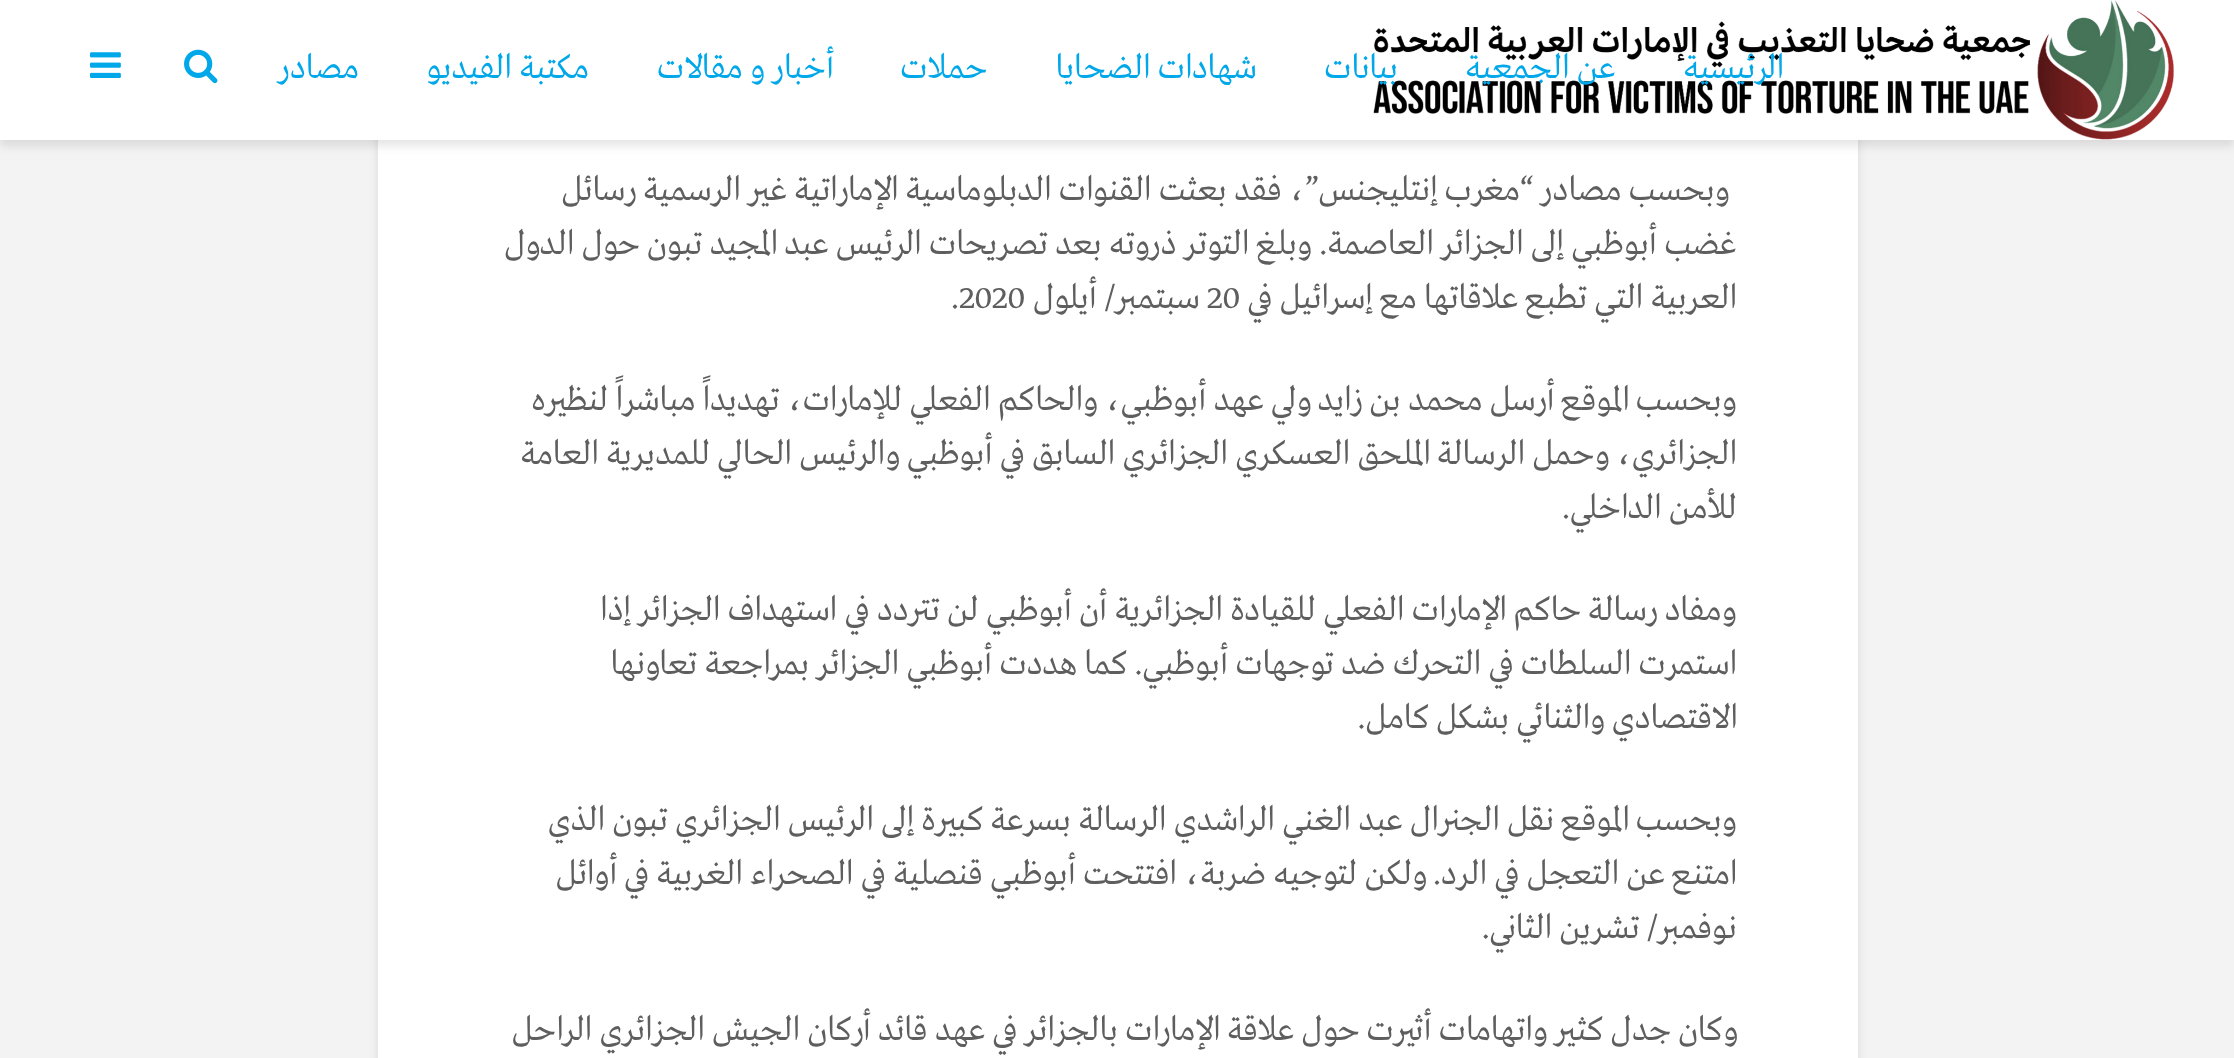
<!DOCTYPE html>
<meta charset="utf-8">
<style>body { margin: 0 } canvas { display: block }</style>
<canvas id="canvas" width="2234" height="1058"></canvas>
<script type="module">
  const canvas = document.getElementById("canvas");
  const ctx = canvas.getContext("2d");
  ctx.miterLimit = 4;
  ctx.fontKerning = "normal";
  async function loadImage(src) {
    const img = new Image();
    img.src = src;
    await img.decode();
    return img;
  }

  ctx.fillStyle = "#f3f3f3";
  ctx.fillRect(0, 0, 2234, 1058);
  ctx.fillStyle = "rgba(0, 1, 1, 0.1)";
  ctx.filter = "blur(5px)";
  ctx.beginPath();
  ctx.rect(378, -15, 1480, 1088);
  ctx.fill();
  ctx.filter = "none";
  ctx.fillStyle = "#ffffff";
  ctx.fillRect(378, 140, 1480, 918);
  ctx.fillStyle = "rgba(0, 1, 1, 0.1)";
  ctx.filter = "blur(5px)";
  ctx.beginPath();
  ctx.rect(0, 6, 2234, 140);
  ctx.fill();
  ctx.filter = "none";
  ctx.fillStyle = "#ffffff";
  ctx.fillRect(0, 0, 2234, 140);
  ctx.drawImage(await loadImage("img1.png"), 1373, 0, 801, 140);
  ctx.direction = "rtl";
  ctx.font = "300 36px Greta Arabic";
  ctx.fillStyle = "#00a7e9";
  ctx.fillText("الرئيسية", 1784, 78);
  ctx.fillText("عن الجمعية", 1616, 78);
  ctx.fillText("بيانات", 1398, 78);
  ctx.fillText("شهادات الضحايا", 1257, 78);
  ctx.fillText("حملات", 988, 78);
  ctx.fillText("أخبار و مقالات", 833, 78);
  ctx.fillText("مكتبة الفيديو", 589, 78);
  ctx.fillText("مصادر", 359, 78);
  ctx.drawImage(await loadImage("img2.png"), 184, 49, 34, 35);
  ctx.drawImage(await loadImage("img3.png"), 90, 52, 31, 26);
  ctx.fillStyle = "#5e5e5e";
  ctx.fillText("وبحسب مصادر “مغرب إنتليجنس”، فقد بعثت القنوات الدبلوماسية الإماراتية غير الرسمية رسائل", 1730, 200);
  ctx.fillText("غضب أبوظبي إلى الجزائر العاصمة. وبلغ التوتر ذروته بعد تصريحات الرئيس عبد المجيد تبون حول الدول", 1737, 254);
  ctx.fillText("العربية التي تطبع علاقاتها مع إسرائيل في", 1737, 308);
  ctx.direction = "ltr";
  ctx.fillText("20", 1207, 308);
  ctx.direction = "rtl";
  ctx.fillText("سبتمبر/ أيلول", 1200, 308);
  ctx.direction = "ltr";
  ctx.fillText(".2020", 951, 308);
  ctx.direction = "rtl";
  ctx.fillText("وبحسب الموقع أرسل محمد بن زايد ولي عهد أبوظبي، والحاكم الفعلي للإمارات، تهديداً مباشراً لنظيره", 1737, 410);
  ctx.fillText("الجزائري، وحمل الرسالة الملحق العسكري الجزائري السابق في أبوظبي والرئيس الحالي للمديرية العامة", 1737, 464);
  ctx.fillText("للأمن الداخلي.", 1737, 518);
  ctx.fillText("ومفاد رسالة حاكم الإمارات الفعلي للقيادة الجزائرية أن أبوظبي لن تتردد في استهداف الجزائر إذا", 1737, 620);
  ctx.fillText("استمرت السلطات في التحرك ضد توجهات أبوظبي. كما هددت أبوظبي الجزائر بمراجعة تعاونها", 1737, 674);
  ctx.fillText("الاقتصادي والثنائي بشكل كامل.", 1737, 728);
  ctx.fillText("وبحسب الموقع نقل الجنرال عبد الغني الراشدي الرسالة بسرعة كبيرة إلى الرئيس الجزائري تبون الذي", 1737, 830);
  ctx.fillText("امتنع عن التعجل في الرد. ولكن لتوجيه ضربة، افتتحت أبوظبي قنصلية في الصحراء الغربية في أوائل", 1737, 884);
  ctx.fillText("نوفمبر/ تشرين الثاني.", 1737, 938);
  ctx.fillText("وكان جدل كثير واتهامات أثيرت حول علاقة الإمارات بالجزائر في عهد قائد أركان الجيش الجزائري الراحل", 1737, 1040);
</script>
